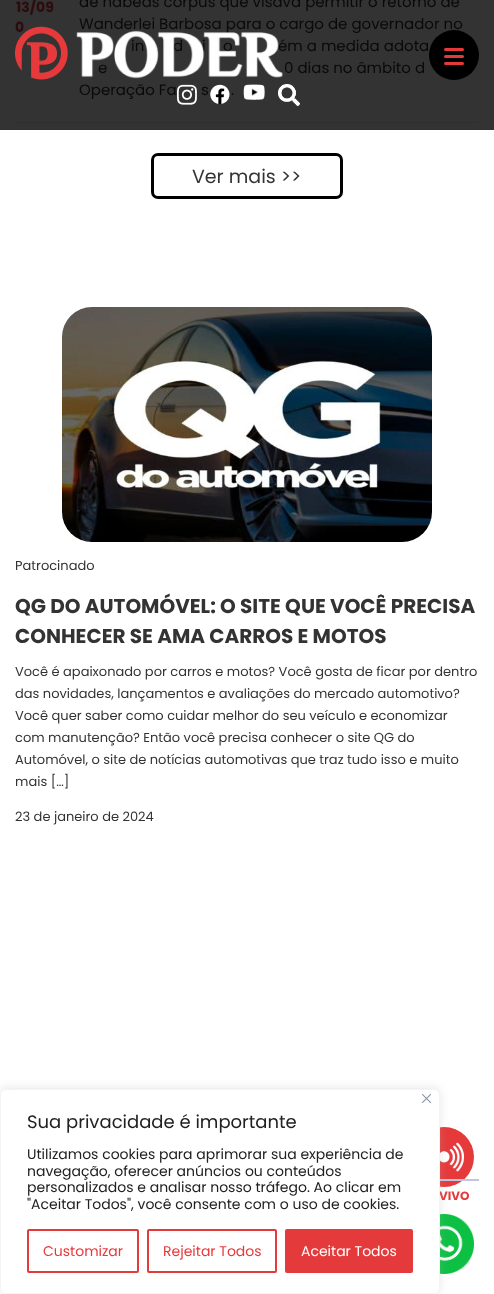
<!DOCTYPE html>
<meta charset="utf-8">
<style>body { margin: 0 } canvas { display: block }</style>
<canvas id="canvas" width="494" height="1294"></canvas>
<script type="module">
  const canvas = document.getElementById("canvas");
  const ctx = canvas.getContext("2d");
  ctx.miterLimit = 4;
  ctx.fontKerning = "normal";
  async function loadImage(src) {
    const img = new Image();
    img.src = src;
    await img.decode();
    return img;
  }

  ctx.fillStyle = "#ffffff";
  ctx.fillRect(0, 0, 494, 1294);
  ctx.fillStyle = "#333333";
  ctx.fillRect(0, 0, 494, 130);
  ctx.fillStyle = "#2e2e2f";
  ctx.fillRect(15, 122, 464, 1);
  ctx.font = "bold 14px Poppins";
  ctx.fillStyle = "#2e0b0c";
  ctx.fillText("13/09", 16, 12);
  ctx.fillText("0", 15, 32);
  ctx.font = "15px Poppins";
  ctx.fillStyle = "#0a0a0a";
  ctx.fillText("de habeas corpus que visava permitir o retorno de", 79, 7);
  ctx.fillText("Wanderlei Barbosa para o cargo de governador no", 79, 29);
  ctx.fillText("in", 131, 51);
  ctx.fillText("d", 173, 51);
  ctx.fillText("i", 202, 51);
  ctx.fillText("o", 223, 51);
  ctx.fillText("ém a medida adota", 278, 51);
  ctx.fillText("e", 98, 73);
  ctx.fillText("0 dias no âmbito d", 284, 73);
  ctx.fillText("Operação Fa", 79, 95);
  ctx.fillText("s", 201, 95);
  ctx.fillText(".", 231, 95);
  ctx.beginPath();
  ctx.roundRect(152.5, 154.5, 189, 43, 5.5);
  ctx.strokeStyle = "#000000";
  ctx.lineWidth = 3;
  ctx.stroke();
  ctx.font = "19px Poppins";
  ctx.fillStyle = "#333333";
  ctx.fillText("Ver mais >>", 192, 183);
  ctx.drawImage(await loadImage("img1.png"), 15, 26, 269, 54);
  ctx.fillStyle = "#000000";
  ctx.beginPath();
  ctx.arc(454, 55, 25, 0, Math.PI * 2);
  ctx.fill();
  ctx.fillStyle = "#e6393a";
  ctx.beginPath();
  ctx.roundRect(444, 48, 20, 3, 1.5);
  ctx.fill();
  ctx.beginPath();
  ctx.roundRect(444, 55, 20, 3, 1.5);
  ctx.fill();
  ctx.beginPath();
  ctx.roundRect(444, 62, 20, 3, 1.5);
  ctx.fill();
  ctx.drawImage(await loadImage("img2.png"), 177, 84, 20, 21);
  ctx.drawImage(await loadImage("img3.png"), 210, 84, 20, 20);
  ctx.drawImage(await loadImage("img4.png"), 243, 84, 22, 16);
  ctx.drawImage(await loadImage("img5.png"), 278, 84, 22, 22);
  ctx.drawImage(await loadImage("img6.png"), 62, 307, 370, 235);
  ctx.font = "13px Poppins";
  ctx.fillStyle = "#333333";
  ctx.fillText("Patrocinado", 15, 570);
  ctx.font = "bold 20px Poppins";
  ctx.fillText("QG DO AUTOMÓVEL: O SITE QUE VOCÊ PRECISA", 15, 613);
  ctx.fillText("CONHECER SE AMA CARROS E MOTOS", 15, 643);
  ctx.font = "13px Poppins";
  ctx.fillText("Você é apaixonado por carros e motos? Você gosta de ficar por dentro", 15, 676);
  ctx.fillText("das novidades, lançamentos e avaliações do mercado automotivo?", 15, 698);
  ctx.fillText("Você quer saber como cuidar melhor do seu veículo e economizar", 15, 720);
  ctx.fillText("com manutenção? Então você precisa conhecer o site QG do", 15, 742);
  ctx.fillText("Automóvel, o site de notícias automotivas que traz tudo isso e muito", 15, 764);
  ctx.fillText("mais […]", 15, 786);
  ctx.fillText("23 de janeiro de 2024", 15, 821);
  ctx.fillStyle = "#e6393a";
  ctx.beginPath();
  ctx.arc(444, 1157, 30, 0, Math.PI * 2);
  ctx.fill();
  ctx.fillStyle = "#c1c6de";
  ctx.fillRect(440, 1179, 39, 2);
  ctx.drawImage(await loadImage("img7.png"), 440, 1142, 24, 30);
  ctx.font = "bold 12px Poppins";
  ctx.fillStyle = "#e6393a";
  ctx.fillText("VIVO", 439, 1200);
  ctx.drawImage(await loadImage("img8.png"), 440, 1214, 34, 60);
  ctx.fillStyle = "rgba(172, 171, 171, 0.3)";
  ctx.filter = "blur(5px)";
  ctx.beginPath();
  ctx.roundRect(0, 1088, 440, 205, 6);
  ctx.fill();
  ctx.filter = "none";
  ctx.fillStyle = "#ffffff";
  ctx.beginPath();
  ctx.roundRect(0.5, 1089.5, 439, 204, 5.5);
  ctx.fill();
  ctx.strokeStyle = "#f4f4f4";
  ctx.lineWidth = 1;
  ctx.stroke();
  ctx.drawImage(await loadImage("img9.png"), 422, 1094, 9, 9);
  ctx.font = "18px Poppins";
  ctx.fillStyle = "#212121";
  ctx.fillText("Sua privacidade é importante", 27, 1128);
  ctx.font = "14px Poppins";
  ctx.fillText("Utilizamos cookies para aprimorar sua experiência de", 27, 1159);
  ctx.fillText("navegação, oferecer anúncios ou conteúdos", 27, 1176);
  ctx.fillText("personalizados e analisar nosso tráfego. Ao clicar em", 27, 1192);
  ctx.fillText("\"Aceitar Todos\", você consente com o uso de cookies.", 27, 1209);
  ctx.beginPath();
  ctx.roundRect(28, 1230, 110, 42, 1);
  ctx.strokeStyle = "#e53a3b";
  ctx.lineWidth = 2;
  ctx.stroke();
  ctx.fillStyle = "#e6393a";
  ctx.fillText("Customizar", 43, 1256);
  ctx.beginPath();
  ctx.roundRect(148, 1230, 128, 42, 1);
  ctx.stroke();
  ctx.fillText("Rejeitar Todos", 163, 1256);
  ctx.fillStyle = "#e53a3b";
  ctx.beginPath();
  ctx.roundRect(286, 1230, 126, 42, 1);
  ctx.fill();
  ctx.stroke();
  ctx.fillStyle = "#ffffff";
  ctx.fillText("Aceitar Todos", 301, 1256);
</script>
